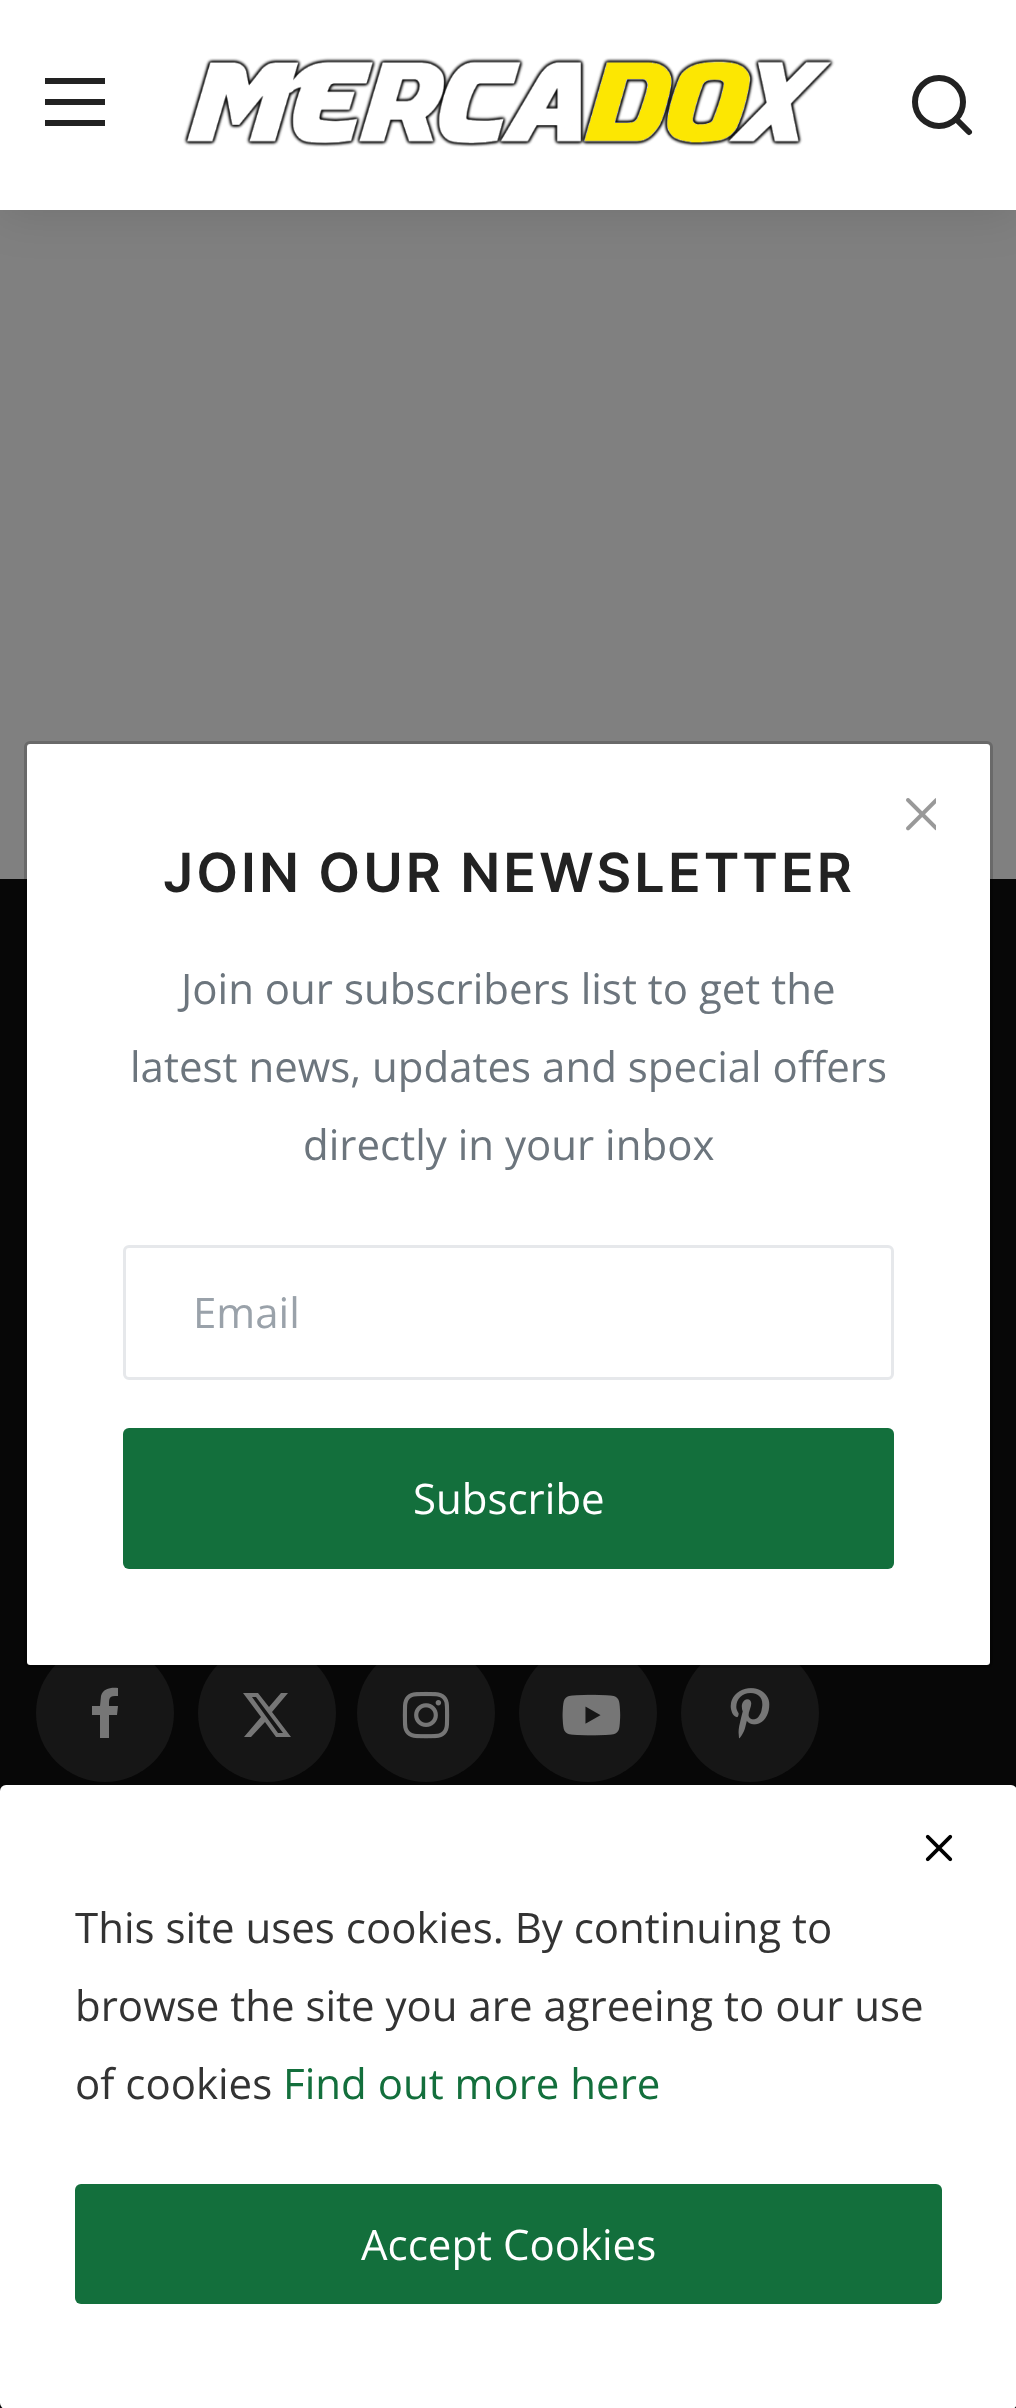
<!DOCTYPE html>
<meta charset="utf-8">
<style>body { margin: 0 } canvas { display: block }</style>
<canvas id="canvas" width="1016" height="2408"></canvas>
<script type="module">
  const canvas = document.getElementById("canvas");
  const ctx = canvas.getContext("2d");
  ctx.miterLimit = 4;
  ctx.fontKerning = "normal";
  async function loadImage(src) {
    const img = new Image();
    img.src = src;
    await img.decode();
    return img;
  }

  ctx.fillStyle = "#808080";
  ctx.fillRect(0, 0, 1016, 2408);
  ctx.fillStyle = "rgba(0, 0, 0, 0.1)";
  ctx.filter = "blur(22.5px)";
  ctx.beginPath();
  ctx.rect(0, 6, 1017, 210);
  ctx.fill();
  ctx.filter = "none";
  ctx.fillStyle = "#ffffff";
  ctx.fillRect(0, 0, 1016, 210);
  ctx.fillStyle = "#222222";
  ctx.fillRect(45, 78, 60, 6);
  ctx.fillRect(45, 99, 60, 6);
  ctx.fillRect(45, 120, 60, 6);
  ctx.drawImage(await loadImage("img1.png"), 183, 57, 652, 90);
  ctx.beginPath();
  ctx.arc(939, 102, 24, 0, Math.PI * 2);
  ctx.strokeStyle = "#222222";
  ctx.lineWidth = 6;
  ctx.stroke();
  ctx.beginPath();
  ctx.moveTo(969, 132);
  ctx.lineTo(956, 119);
  ctx.lineCap = "round";
  ctx.lineJoin = "round";
  ctx.stroke();
  ctx.fillStyle = "#070707";
  ctx.fillRect(0, 879, 1016, 1529);
  ctx.fillStyle = "#161616";
  ctx.beginPath();
  ctx.arc(105, 1713, 69, 0, Math.PI * 2);
  ctx.fill();
  ctx.beginPath();
  ctx.arc(267, 1713, 69, 0, Math.PI * 2);
  ctx.fill();
  ctx.beginPath();
  ctx.arc(426, 1713, 69, 0, Math.PI * 2);
  ctx.fill();
  ctx.beginPath();
  ctx.arc(588, 1713, 69, 0, Math.PI * 2);
  ctx.fill();
  ctx.beginPath();
  ctx.arc(750, 1713, 69, 0, Math.PI * 2);
  ctx.fill();
  ctx.fillStyle = "#ffffff";
  ctx.beginPath();
  ctx.roundRect(27, 744, 963, 921, 3);
  ctx.fill();
  ctx.beginPath();
  ctx.roundRect(25.5, 742.5, 966, 924, 4.5);
  ctx.strokeStyle = "rgba(0, 0, 0, 0.18)";
  ctx.lineWidth = 3;
  ctx.lineJoin = "miter";
  ctx.stroke();
  ctx.drawImage(await loadImage("img2.png"), 906, 798, 30, 33);
  ctx.letterSpacing = "3px";
  ctx.font = "600 54px Inter";
  ctx.fillStyle = "#222222";
  ctx.fillText("JOIN OUR NEWSLETTER", 163, 892);
  ctx.letterSpacing = "0px";
  ctx.font = "42px Open Sans";
  ctx.fillStyle = "#6c757d";
  ctx.fillText("Join our subscribers list to get the", 181, 1004);
  ctx.fillText("latest news, updates and special offers", 130, 1082);
  ctx.fillText("directly in your inbox", 303, 1160);
  ctx.beginPath();
  ctx.roundRect(124.5, 1246.5, 768, 132, 4.5);
  ctx.strokeStyle = "#e6e8eb";
  ctx.stroke();
  ctx.fillStyle = "#9aa2aa";
  ctx.fillText("Email", 193, 1328);
  ctx.fillStyle = "#136f3c";
  ctx.beginPath();
  ctx.roundRect(123, 1428, 771, 141, 6);
  ctx.fill();
  ctx.fillStyle = "#ffffff";
  ctx.fillText("Subscribe", 413, 1514);
  ctx.fillStyle = "#767676";
  ctx.beginPath();
  ctx.moveTo(118, 1688);
  ctx.lineTo(118, 1696);
  ctx.bezierCurveTo(109, 1696, 109, 1697, 109, 1706);
  ctx.lineTo(118, 1706);
  ctx.lineTo(117, 1715);
  ctx.lineTo(109, 1715);
  ctx.lineTo(109, 1738);
  ctx.lineTo(100, 1738);
  ctx.lineTo(100, 1715);
  ctx.lineTo(92, 1715);
  ctx.lineTo(92, 1706);
  ctx.lineTo(100, 1706);
  ctx.lineTo(101, 1696);
  ctx.bezierCurveTo(103, 1688, 112, 1687, 118, 1688);
  ctx.closePath();
  ctx.fill();
  ctx.beginPath();
  ctx.moveTo(281, 1693);
  ctx.lineTo(288, 1693);
  ctx.lineTo(272, 1712);
  ctx.lineTo(291, 1737);
  ctx.lineTo(276, 1737);
  ctx.lineTo(265, 1722);
  ctx.lineTo(251, 1737);
  ctx.lineTo(244, 1737);
  ctx.lineTo(261, 1717);
  ctx.lineTo(243, 1693);
  ctx.lineTo(258, 1693);
  ctx.lineTo(269, 1707);
  ctx.closePath();
  ctx.moveTo(278, 1733);
  ctx.lineTo(283, 1733);
  ctx.lineTo(256, 1697);
  ctx.lineTo(252, 1697);
  ctx.closePath();
  ctx.fill();
  ctx.drawImage(await loadImage("img3.png"), 402, 1691, 48, 48);
  ctx.drawImage(await loadImage("img4.png"), 562, 1694, 59, 42);
  ctx.drawImage(await loadImage("img5.png"), 730, 1688, 40, 51);
  ctx.fillStyle = "#ffffff";
  ctx.beginPath();
  ctx.roundRect(0, 1785, 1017, 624, 6);
  ctx.fill();
  ctx.drawImage(await loadImage("img6.png"), 925, 1834, 28, 28);
  ctx.fillStyle = "#333333";
  ctx.fillText("This site uses cookies. By continuing to", 75, 1943);
  ctx.fillText("browse the site you are agreeing to our use", 75, 2021);
  ctx.fillText("of cookies", 75, 2099);
  ctx.fillStyle = "#136f3c";
  ctx.fillText("Find out more here", 283, 2099);
  ctx.beginPath();
  ctx.roundRect(75, 2184, 867, 120, 6);
  ctx.fill();
  ctx.fillStyle = "#ffffff";
  ctx.fillText("Accept Cookies", 361, 2260);
</script>
